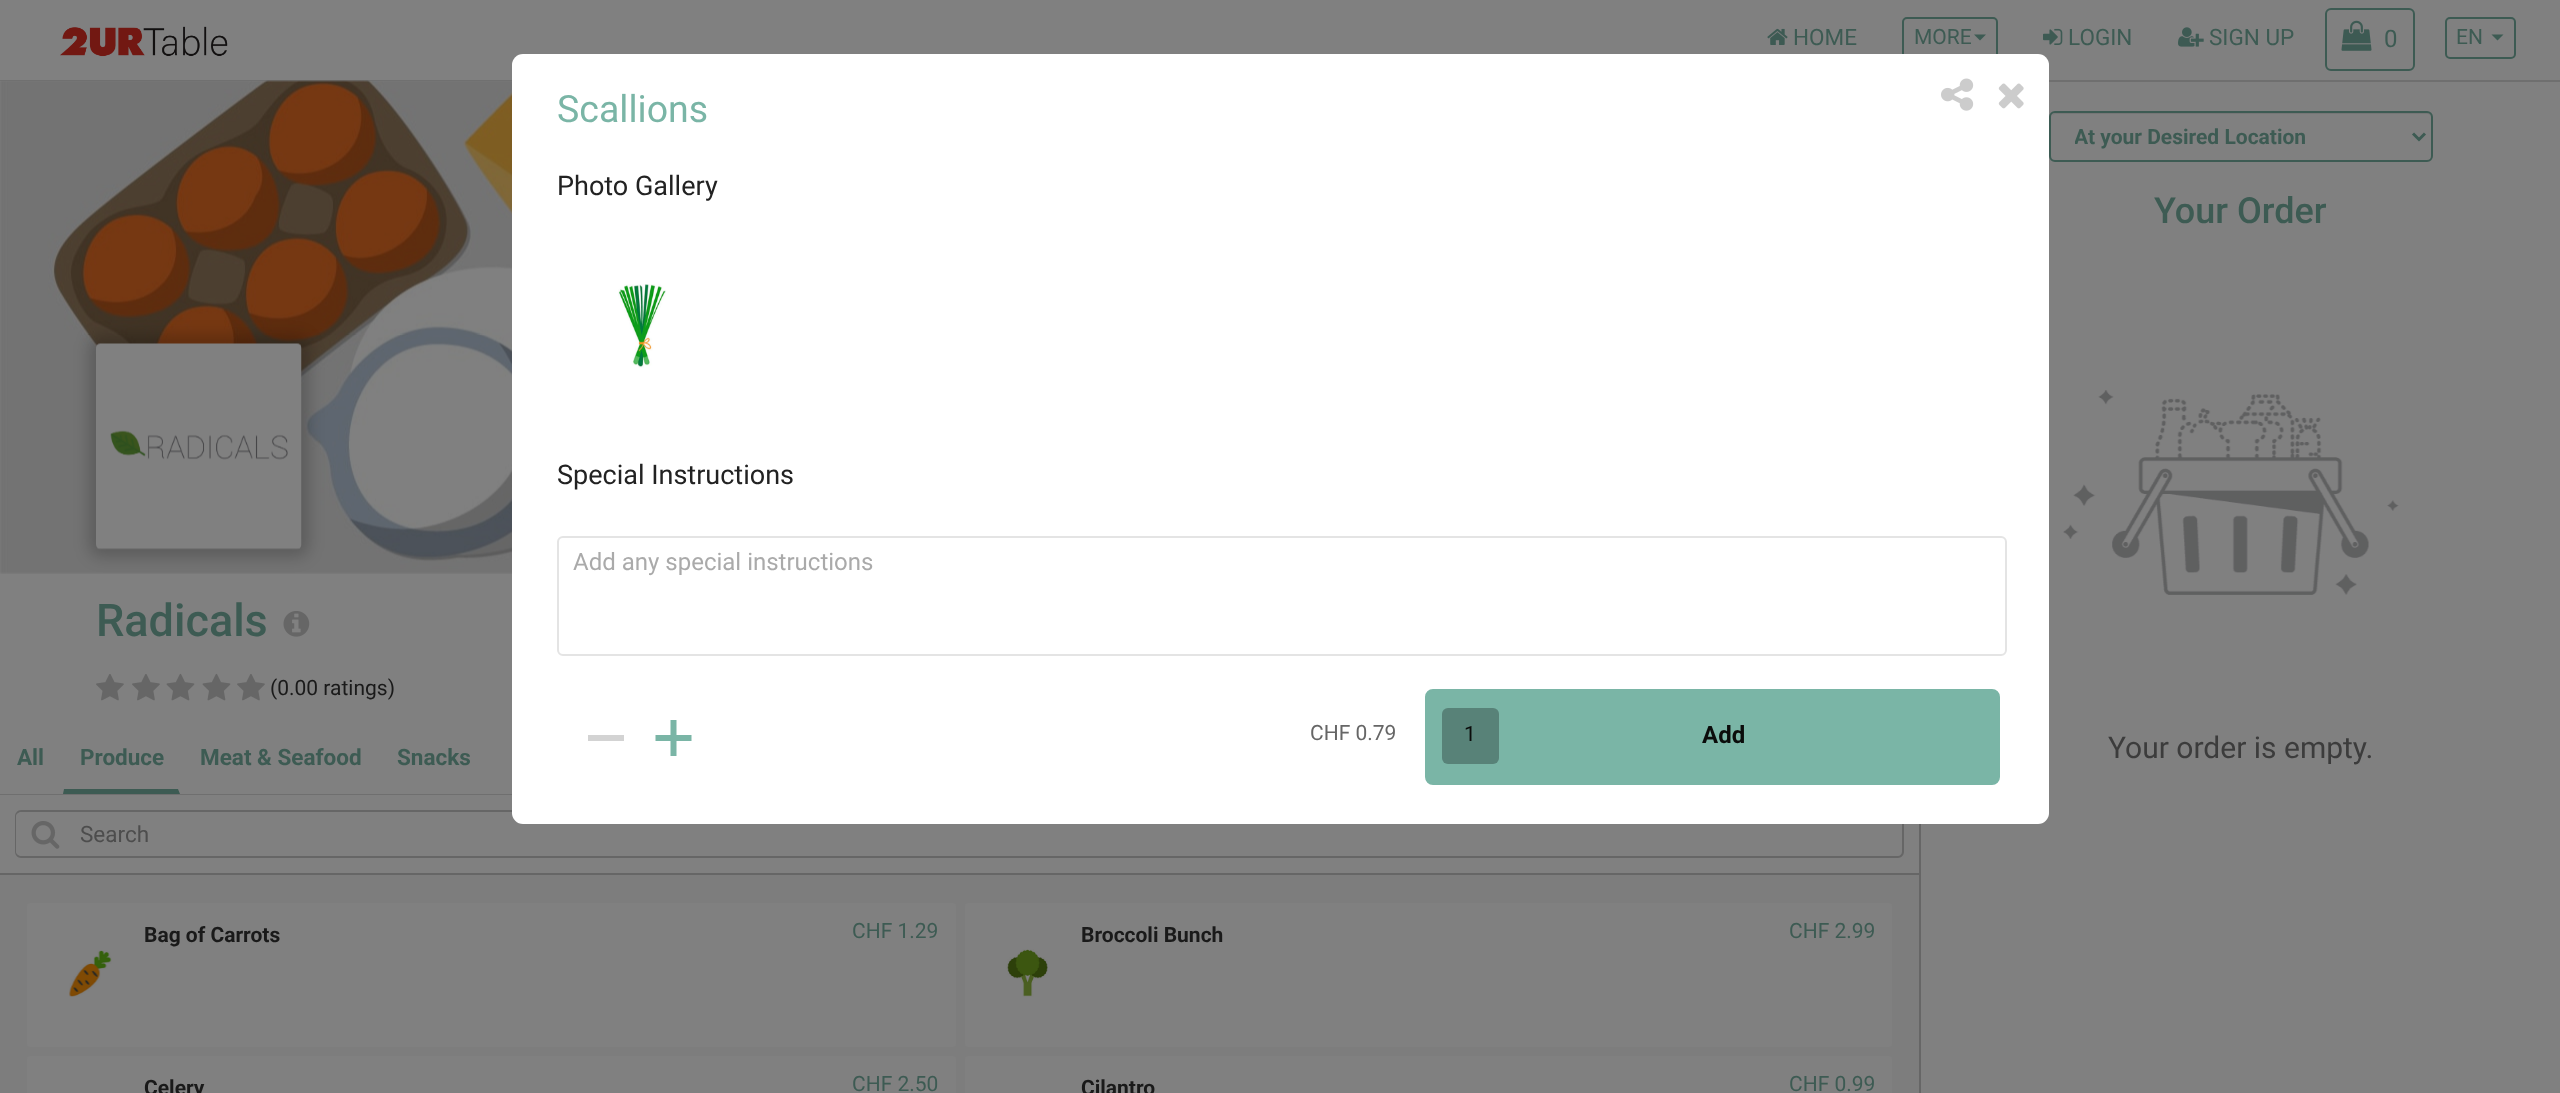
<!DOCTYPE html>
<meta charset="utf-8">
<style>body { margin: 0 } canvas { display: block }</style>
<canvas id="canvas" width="2560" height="1093"></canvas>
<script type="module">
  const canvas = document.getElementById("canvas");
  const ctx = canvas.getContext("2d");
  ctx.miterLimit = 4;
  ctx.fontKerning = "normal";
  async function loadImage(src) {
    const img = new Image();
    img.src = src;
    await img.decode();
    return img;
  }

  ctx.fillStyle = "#808080";
  ctx.fillRect(0, 0, 2560, 1093);
  ctx.fillStyle = "#6f6f6f";
  ctx.fillRect(0, 80, 2560, 2);
  ctx.drawImage(await loadImage("img1.png"), 60, 26, 168, 31);
  ctx.drawImage(await loadImage("img2.png"), 1767, 28, 21, 17);
  ctx.font = "22.5px Roboto";
  ctx.fillStyle = "#3d5b53";
  ctx.fillText("HOME", 1793, 45);
  ctx.beginPath();
  ctx.roundRect(1903, 18, 94, 40, 4);
  ctx.strokeStyle = "#3d5b53";
  ctx.lineWidth = 2;
  ctx.stroke();
  ctx.font = "21px Roboto";
  ctx.fillText("MORE", 1914, 44);
  ctx.beginPath();
  ctx.moveTo(1974, 34.5);
  ctx.lineTo(1986, 34.5);
  ctx.lineTo(1980, 40.5);
  ctx.closePath();
  ctx.fill();
  ctx.drawImage(await loadImage("img3.png"), 2043, 28, 20, 17);
  ctx.font = "22.5px Roboto";
  ctx.fillText("LOGIN", 2068, 45);
  ctx.drawImage(await loadImage("img4.png"), 2178, 27, 26, 20);
  ctx.fillText("SIGN UP", 2209, 45);
  ctx.beginPath();
  ctx.roundRect(2326, 9, 88, 61, 5);
  ctx.stroke();
  ctx.drawImage(await loadImage("img5.png"), 2341, 20, 31, 31);
  ctx.font = "24px Roboto";
  ctx.fillText("0", 2384, 47);
  ctx.beginPath();
  ctx.roundRect(2446, 18, 69, 40, 4);
  ctx.stroke();
  ctx.font = "21px Roboto";
  ctx.fillText("EN", 2456, 44);
  ctx.beginPath();
  ctx.moveTo(2491.5, 34.5);
  ctx.lineTo(2503.5, 34.5);
  ctx.lineTo(2497.5, 40.5);
  ctx.closePath();
  ctx.fill();
  ctx.fillStyle = "#767676";
  ctx.beginPath();
  ctx.moveTo(2055, 114);
  ctx.lineTo(2427, 114);
  ctx.bezierCurveTo(2429, 114, 2432, 116, 2432, 118);
  ctx.bezierCurveTo(2432, 115, 2430, 113, 2427, 113);
  ctx.lineTo(2056, 113);
  ctx.bezierCurveTo(2054, 113, 2053, 114, 2052, 115);
  ctx.closePath();
  ctx.fill();
  ctx.beginPath();
  ctx.roundRect(2050, 112, 382, 49, 5);
  ctx.stroke();
  ctx.beginPath();
  ctx.moveTo(2413, 133.5);
  ctx.lineTo(2419, 139.5);
  ctx.lineTo(2425, 133.5);
  ctx.lineWidth = 3;
  ctx.stroke();
  ctx.save();
  ctx.beginPath();
  ctx.rect(2075, 123, 315, 27);
  ctx.clip();
  ctx.font = "bold 21px Roboto";
  ctx.fillStyle = "#3d5b53";
  ctx.fillText("At your Desired Location", 2074, 144);
  ctx.restore();
  ctx.font = "500 36px Roboto";
  ctx.fillStyle = "#3d5b53";
  ctx.fillText("Your Order", 2154, 223);
  ctx.drawImage(await loadImage("img6.png"), 2049, 246, 350, 480);
  ctx.font = "30px Roboto";
  ctx.fillStyle = "#3c3c3c";
  ctx.fillText("Your order is empty.", 2108, 758);
  ctx.fillStyle = "#7d7d7d";
  ctx.fillRect(0, 81, 1919, 1012);
  ctx.fillStyle = "#666666";
  ctx.fillRect(1919, 824, 2, 269);
  ctx.fillStyle = "#808080";
  ctx.fillRect(0, 573, 512, 221);
  ctx.drawImage(await loadImage("img7.png"), 0, 80, 512, 494);
  ctx.fillStyle = "rgba(0, 0, 0, 0.2)";
  ctx.filter = "blur(7.5px)";
  ctx.beginPath();
  ctx.roundRect(89, 336, 220, 221, 12);
  ctx.fill();
  ctx.filter = "none";
  ctx.drawImage(await loadImage("img8.png"), 96, 343, 206, 207);
  ctx.font = "500 45px Roboto";
  ctx.fillStyle = "#3d5b53";
  ctx.fillText("Radicals", 96, 636);
  ctx.drawImage(await loadImage("img9.png"), 283, 611, 27, 26);
  ctx.drawImage(await loadImage("img10.png"), 96, 674, 28, 27);
  ctx.drawImage(await loadImage("img10.png"), 132, 674, 28, 27);
  ctx.drawImage(await loadImage("img11.png"), 166, 673, 29, 28);
  ctx.drawImage(await loadImage("img11.png"), 202, 673, 29, 28);
  ctx.drawImage(await loadImage("img10.png"), 237, 674, 28, 27);
  ctx.font = "21px Roboto";
  ctx.fillStyle = "#1a1a1a";
  ctx.fillText("(0.00 ratings)", 270, 695);
  ctx.fillStyle = "#6f6f6f";
  ctx.fillRect(0, 794, 512, 1);
  ctx.font = "bold 22.5px Roboto";
  ctx.fillStyle = "#3d5b53";
  ctx.fillText("All", 17, 765);
  ctx.beginPath();
  ctx.moveTo(180, 794);
  ctx.lineTo(63, 794);
  ctx.lineTo(64, 789);
  ctx.lineTo(178, 789);
  ctx.closePath();
  ctx.fill();
  ctx.fillText("Produce", 80, 765);
  ctx.fillText("Meat & Seafood", 200, 765);
  ctx.fillText("Snacks", 397, 765);
  ctx.fillStyle = "#808080";
  ctx.fillRect(0, 795, 1919, 78);
  ctx.fillStyle = "#666666";
  ctx.fillRect(0, 873, 1919, 2);
  ctx.beginPath();
  ctx.moveTo(21, 810);
  ctx.lineTo(70, 810);
  ctx.lineTo(70, 858);
  ctx.lineTo(21, 858);
  ctx.bezierCurveTo(18, 858, 15, 855, 15, 852);
  ctx.lineTo(15, 816);
  ctx.bezierCurveTo(15, 813, 18, 810, 21, 810);
  ctx.closePath();
  ctx.moveTo(21, 812);
  ctx.lineTo(70, 812);
  ctx.lineTo(70, 856);
  ctx.lineTo(21, 856);
  ctx.bezierCurveTo(19, 856, 16, 854, 16, 852);
  ctx.lineTo(16, 816);
  ctx.bezierCurveTo(16, 814, 19, 812, 21, 812);
  ctx.closePath();
  ctx.fill("evenodd");
  ctx.drawImage(await loadImage("img12.png"), 31, 821, 29, 28);
  ctx.beginPath();
  ctx.moveTo(70, 810);
  ctx.lineTo(1898, 810);
  ctx.bezierCurveTo(1901, 810, 1904, 813, 1904, 816);
  ctx.lineTo(1904, 852);
  ctx.bezierCurveTo(1904, 855, 1901, 858, 1898, 858);
  ctx.lineTo(70, 858);
  ctx.closePath();
  ctx.moveTo(70, 812);
  ctx.lineTo(1898, 812);
  ctx.bezierCurveTo(1900, 812, 1902, 814, 1902, 816);
  ctx.lineTo(1902, 852);
  ctx.bezierCurveTo(1902, 854, 1900, 856, 1898, 856);
  ctx.lineTo(70, 856);
  ctx.closePath();
  ctx.fill("evenodd");
  ctx.font = "22.5px Roboto";
  ctx.fillStyle = "#4d4d4d";
  ctx.fillText("Search", 80, 842);
  ctx.fillStyle = "#808080";
  ctx.beginPath();
  ctx.roundRect(27, 903, 929, 144, 3);
  ctx.fill();
  ctx.font = "bold 21px Roboto";
  ctx.fillStyle = "#1a1a1a";
  ctx.fillText("Bag of Carrots", 144, 942);
  ctx.font = "21px Roboto";
  ctx.fillStyle = "#3d5b53";
  ctx.fillText("CHF 1.29", 852, 938);
  ctx.drawImage(await loadImage("img13.png"), 69, 950, 43, 47);
  ctx.fillStyle = "#808080";
  ctx.beginPath();
  ctx.roundRect(965, 903, 927, 144, 3);
  ctx.fill();
  ctx.font = "bold 21px Roboto";
  ctx.fillStyle = "#1a1a1a";
  ctx.fillText("Broccoli Bunch", 1081, 942);
  ctx.font = "21px Roboto";
  ctx.fillStyle = "#3d5b53";
  ctx.fillText("CHF 2.99", 1789, 938);
  ctx.drawImage(await loadImage("img14.png"), 1006, 949, 42, 48);
  ctx.fillStyle = "#808080";
  ctx.beginPath();
  ctx.roundRect(27, 1056, 929, 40, 3);
  ctx.fill();
  ctx.font = "bold 21px Roboto";
  ctx.fillStyle = "#1a1a1a";
  ctx.fillText("Celery", 144, 1095);
  ctx.font = "21px Roboto";
  ctx.fillStyle = "#3d5b53";
  ctx.fillText("CHF 2.50", 852, 1091);
  ctx.fillStyle = "#808080";
  ctx.beginPath();
  ctx.roundRect(965, 1056, 927, 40, 3);
  ctx.fill();
  ctx.font = "bold 21px Roboto";
  ctx.fillStyle = "#1a1a1a";
  ctx.fillText("Cilantro", 1081, 1095);
  ctx.font = "21px Roboto";
  ctx.fillStyle = "#3d5b53";
  ctx.fillText("CHF 0.99", 1789, 1091);
  ctx.fillStyle = "#ffffff";
  ctx.beginPath();
  ctx.roundRect(512, 54, 1537, 770, 11);
  ctx.fill();
  ctx.font = "37.5px Roboto";
  ctx.fillStyle = "#7ab5a6";
  ctx.fillText("Scallions", 557, 122);
  ctx.font = "27px Roboto";
  ctx.fillStyle = "#222222";
  ctx.fillText("Photo Gallery", 557, 195);
  ctx.drawImage(await loadImage("img15.png"), 618, 284, 48, 84);
  ctx.fillText("Special Instructions", 557, 484);
  ctx.beginPath();
  ctx.roundRect(558, 537, 1448, 118, 5);
  ctx.strokeStyle = "#e4e4e4";
  ctx.lineWidth = 2;
  ctx.stroke();
  ctx.font = "24px Roboto";
  ctx.fillStyle = "#aaaaaa";
  ctx.fillText("Add any special instructions", 573, 570);
  ctx.fillStyle = "#d3d3d3";
  ctx.fillRect(588, 735, 36, 6);
  ctx.fillStyle = "#7ab5a6";
  ctx.beginPath();
  ctx.moveTo(691.5, 735);
  ctx.lineTo(691.5, 741);
  ctx.lineTo(676.5, 741);
  ctx.lineTo(676.5, 756);
  ctx.lineTo(670.5, 756);
  ctx.lineTo(670.5, 741);
  ctx.lineTo(655.5, 741);
  ctx.lineTo(655.5, 735);
  ctx.lineTo(670.5, 735);
  ctx.lineTo(670.5, 720);
  ctx.lineTo(676.5, 720);
  ctx.lineTo(676.5, 735);
  ctx.closePath();
  ctx.fill();
  ctx.font = "21px Roboto";
  ctx.fillStyle = "#666666";
  ctx.fillText("CHF 0.79", 1310, 740);
  ctx.fillStyle = "#7ab5a6";
  ctx.beginPath();
  ctx.roundRect(1426, 690, 573, 94, 7);
  ctx.fill();
  ctx.strokeStyle = "#7ab5a6";
  ctx.stroke();
  ctx.fillStyle = "#588278";
  ctx.beginPath();
  ctx.roundRect(1442, 708, 57, 56, 6);
  ctx.fill();
  ctx.fillStyle = "#0b0c0b";
  ctx.fillText("1", 1464, 741);
  ctx.font = "bold 24px Roboto";
  ctx.fillText("Add", 1702, 743);
  ctx.drawImage(await loadImage("img16.png"), 1941, 78, 33, 33);
  ctx.drawImage(await loadImage("img17.png"), 1998, 83, 26, 26);
</script>
